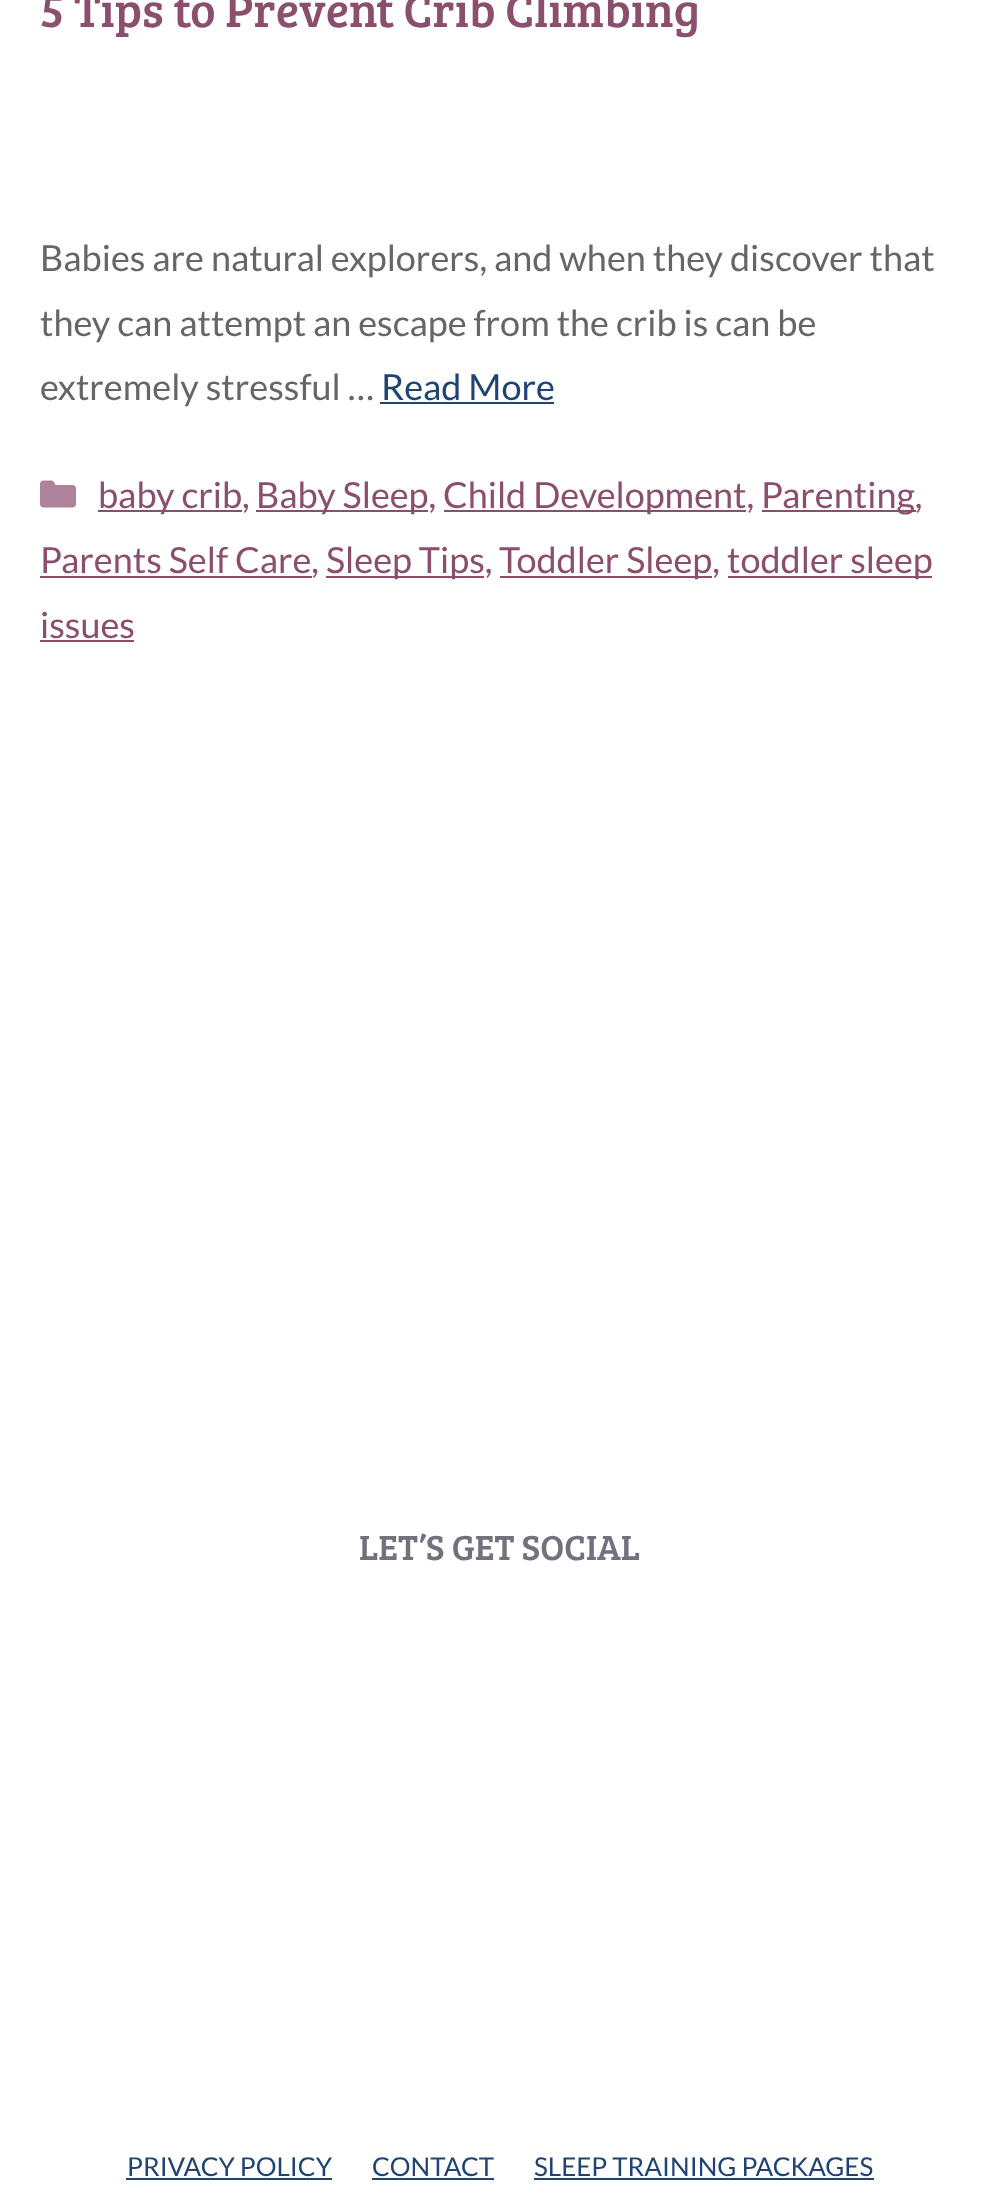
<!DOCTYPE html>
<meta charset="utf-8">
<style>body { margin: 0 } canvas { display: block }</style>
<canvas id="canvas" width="999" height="2206"></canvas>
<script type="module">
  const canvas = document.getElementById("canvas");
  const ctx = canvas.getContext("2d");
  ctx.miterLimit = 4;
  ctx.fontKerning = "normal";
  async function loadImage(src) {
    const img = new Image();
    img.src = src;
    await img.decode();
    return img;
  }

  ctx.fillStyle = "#ffffff";
  ctx.fillRect(0, 0, 999, 2206);
  ctx.font = "48px Bree Serif";
  ctx.fillStyle = "#8b4e6d";
  ctx.fillText("5 Tips to Prevent Crib Climbing", 40, 27);
  ctx.font = "36px Lato";
  ctx.fillStyle = "#666666";
  ctx.fillText("Babies are natural explorers, and when they discover that", 40, 271);
  ctx.fillText("they can attempt an escape from the crib is can be", 40, 336);
  ctx.fillText("extremely stressful …", 40, 400);
  ctx.fillStyle = "#1f4373";
  ctx.fillText("Read More", 381, 400);
  ctx.fillRect(380, 402, 174, 2);
  ctx.drawImage(await loadImage("img1.png"), 40, 480, 36, 28);
  ctx.fillStyle = "#8b4e6d";
  ctx.fillRect(98, 510, 144, 2);
  ctx.fillText("baby crib,", 98, 508);
  ctx.fillRect(256, 510, 172, 2);
  ctx.fillText("Baby Sleep,", 256, 508);
  ctx.fillRect(444, 510, 302, 2);
  ctx.fillText("Child Development,", 443, 508);
  ctx.fillRect(762, 510, 154, 2);
  ctx.fillText("Parenting,", 761, 508);
  ctx.fillRect(40, 576, 272, 2);
  ctx.fillText("Parents Self Care,", 40, 573);
  ctx.fillRect(326, 576, 158, 2);
  ctx.fillText("Sleep Tips,", 326, 573);
  ctx.fillRect(500, 576, 212, 2);
  ctx.fillText("Toddler Sleep,", 499, 573);
  ctx.fillRect(728, 576, 204, 2);
  ctx.fillText("toddler sleep", 727, 573);
  ctx.fillText("issues", 40, 638);
  ctx.fillRect(40, 640, 94, 2);
  ctx.font = "36px Bree Serif";
  ctx.fillStyle = "#72727f";
  ctx.fillText("LET’S GET SOCIAL", 359, 1560);
  ctx.font = "26px Lato";
  ctx.fillStyle = "#1f4373";
  ctx.fillText("PRIVACY POLICY", 127, 2176);
  ctx.fillStyle = "#214373";
  ctx.fillRect(126, 2178, 206, 2);
  ctx.fillStyle = "#1f4373";
  ctx.fillText("CONTACT", 372, 2176);
  ctx.fillStyle = "#214373";
  ctx.fillRect(372, 2178, 122, 2);
  ctx.fillStyle = "#1f4373";
  ctx.fillText("SLEEP TRAINING PACKAGES", 534, 2176);
  ctx.fillStyle = "#214373";
  ctx.fillRect(534, 2178, 340, 2);
</script>
